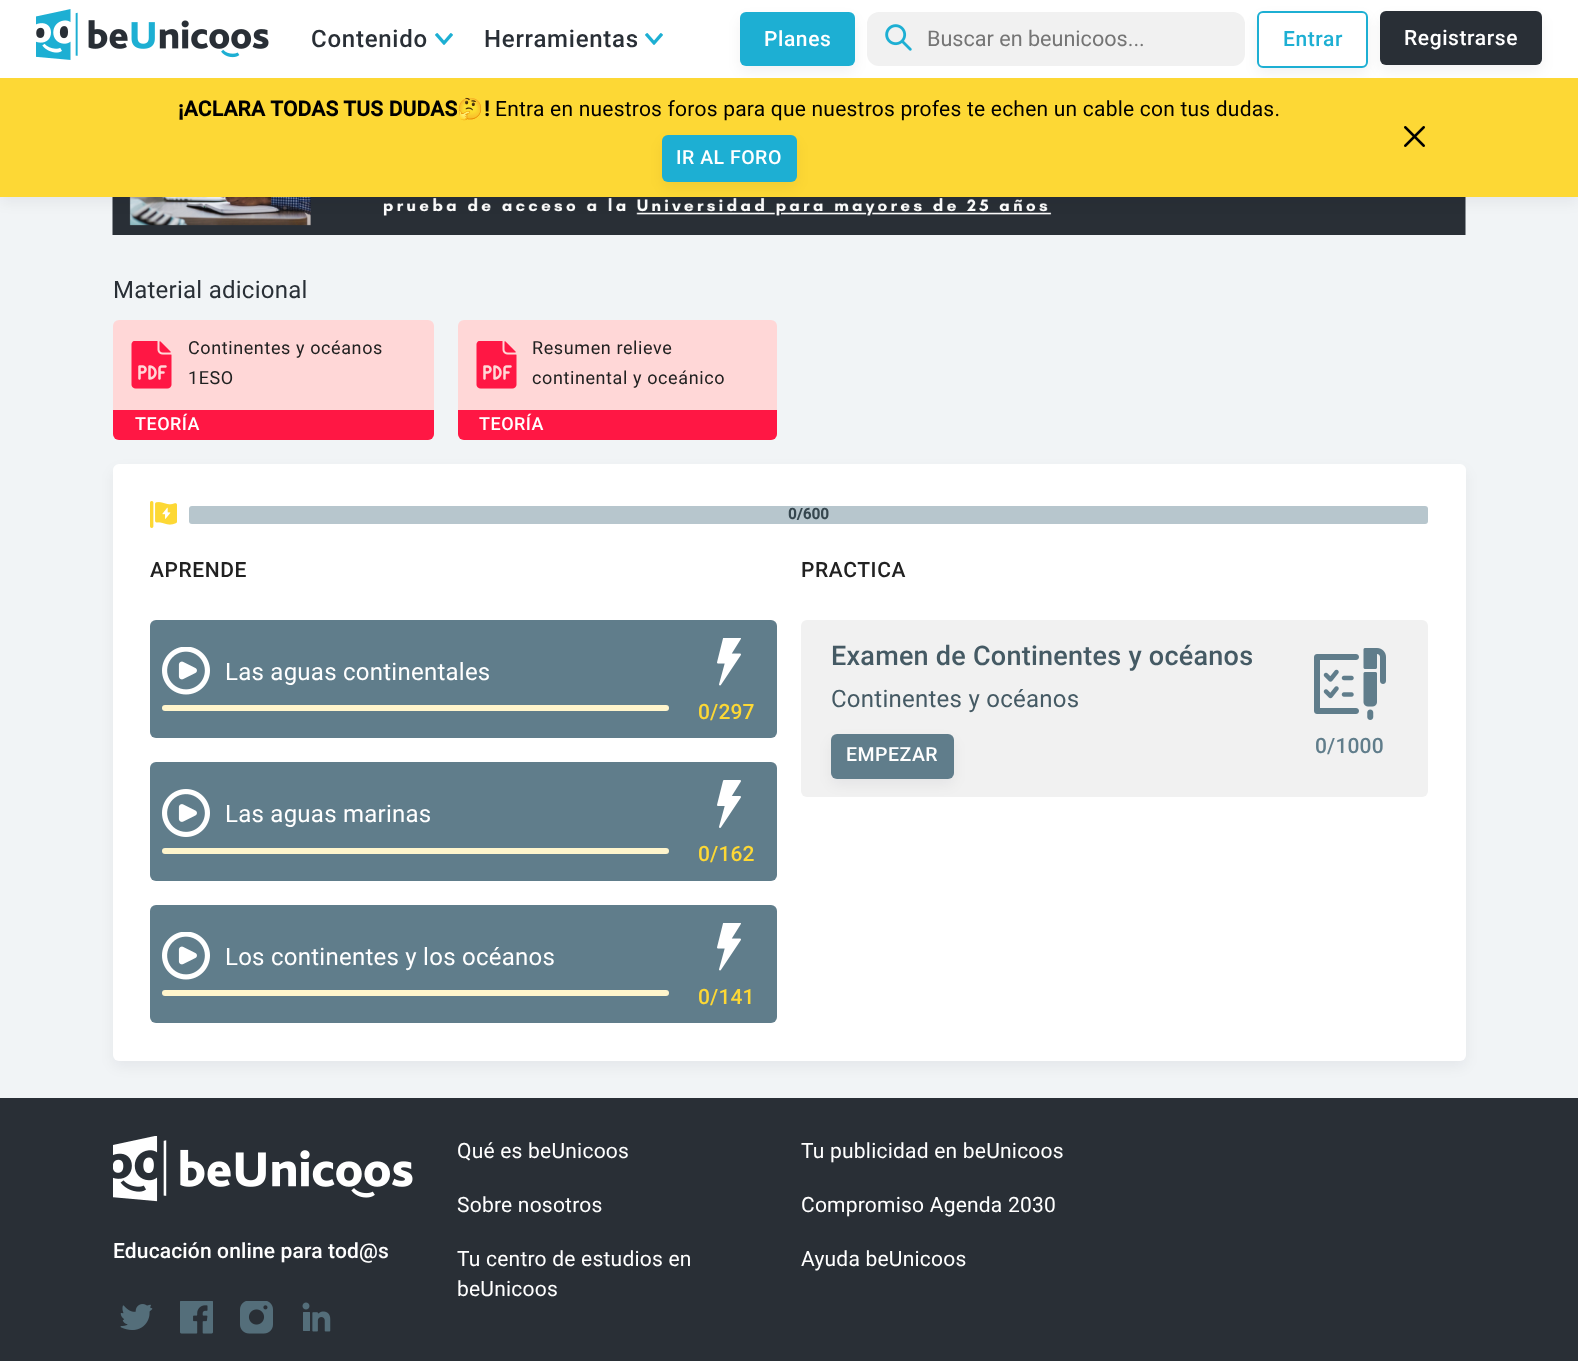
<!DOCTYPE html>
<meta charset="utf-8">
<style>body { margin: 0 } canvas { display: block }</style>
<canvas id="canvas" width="1578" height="1361"></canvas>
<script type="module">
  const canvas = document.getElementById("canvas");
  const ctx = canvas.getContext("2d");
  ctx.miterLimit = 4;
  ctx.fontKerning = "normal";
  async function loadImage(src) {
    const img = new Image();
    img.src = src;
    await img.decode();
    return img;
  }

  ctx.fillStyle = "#f1f4f6";
  ctx.fillRect(0, 0, 1578, 1361);
  ctx.drawImage(await loadImage("img5.png"), 112, 197, 1354, 38);
  ctx.fillStyle = "rgba(4, 9, 20, 0.05)";
  ctx.filter = "blur(6.5px)";
  ctx.beginPath();
  ctx.rect(0, 6, 1578, 197);
  ctx.fill();
  ctx.filter = "none";
  ctx.fillStyle = "#ffffff";
  ctx.fillRect(0, 0, 1578, 78);
  ctx.drawImage(await loadImage("img1.png"), 36, 9, 233, 51);
  ctx.letterSpacing = "0.75px";
  ctx.font = "500 24px Roboto";
  ctx.fillStyle = "#292f36";
  ctx.fillText("Contenido", 311, 47);
  ctx.drawImage(await loadImage("img2.png"), 435, 33, 18, 12);
  ctx.fillText("Herramientas", 484, 47);
  ctx.drawImage(await loadImage("img2.png"), 645, 33, 18, 12);
  ctx.fillStyle = "rgba(4, 9, 20, 0.05)";
  ctx.filter = "blur(6.5px)";
  ctx.beginPath();
  ctx.roundRect(740, 18, 115, 54, 6);
  ctx.fill();
  ctx.filter = "none";
  ctx.fillStyle = "#1dafd3";
  ctx.beginPath();
  ctx.roundRect(740, 12, 115, 54, 6);
  ctx.fill();
  ctx.letterSpacing = "0.6px";
  ctx.font = "500 21px Roboto";
  ctx.fillStyle = "#ffffff";
  ctx.fillText("Planes", 764, 46);
  ctx.fillStyle = "#f1f1f1";
  ctx.beginPath();
  ctx.roundRect(867, 12, 378, 54, 12);
  ctx.fill();
  ctx.drawImage(await loadImage("img3.png"), 885, 24, 27, 27);
  ctx.letterSpacing = "0px";
  ctx.font = "21.6px Roboto";
  ctx.fillStyle = "#757575";
  ctx.fillText("Buscar en beunicoos...", 927, 46);
  ctx.fillStyle = "rgba(4, 9, 20, 0.05)";
  ctx.filter = "blur(6.5px)";
  ctx.beginPath();
  ctx.roundRect(1257, 17, 111, 57, 6);
  ctx.fill();
  ctx.filter = "none";
  ctx.fillStyle = "#ffffff";
  ctx.beginPath();
  ctx.roundRect(1258, 12, 109, 55, 5);
  ctx.fill();
  ctx.strokeStyle = "#1dafd3";
  ctx.lineWidth = 2;
  ctx.stroke();
  ctx.letterSpacing = "0.6px";
  ctx.font = "500 21px Roboto";
  ctx.fillStyle = "#1dafd3";
  ctx.fillText("Entrar", 1283, 46);
  ctx.fillStyle = "rgba(4, 9, 20, 0.05)";
  ctx.filter = "blur(6.5px)";
  ctx.beginPath();
  ctx.roundRect(1380, 17, 162, 54, 6);
  ctx.fill();
  ctx.filter = "none";
  ctx.fillStyle = "#292f36";
  ctx.beginPath();
  ctx.roundRect(1380, 11, 162, 54, 6);
  ctx.fill();
  ctx.fillStyle = "#ffffff";
  ctx.fillText("Registrarse", 1404, 45);
  ctx.fillStyle = "#fdd835";
  ctx.fillRect(0, 78, 1578, 119);
  ctx.letterSpacing = "0.22px";
  ctx.font = "bold 21px Roboto";
  ctx.fillStyle = "#000000";
  ctx.fillText("¡ACLARA TODAS TUS DUDAS", 178, 116);
  ctx.font = "bold 21px Noto Color Emoji";
  ctx.fillText("🤔", 457, 116);
  ctx.font = "bold 21px Roboto";
  ctx.fillText("!", 484, 116);
  ctx.font = "21px Roboto";
  ctx.fillText("Entra en nuestros foros para que nuestros profes te echen un cable con tus dudas.", 495, 116);
  ctx.fillStyle = "rgba(4, 9, 20, 0.05)";
  ctx.filter = "blur(6.5px)";
  ctx.beginPath();
  ctx.roundRect(662, 141, 135, 47, 6);
  ctx.fill();
  ctx.filter = "none";
  ctx.fillStyle = "#1dafd3";
  ctx.beginPath();
  ctx.roundRect(662, 135, 135, 47, 6);
  ctx.fill();
  ctx.letterSpacing = "0.5px";
  ctx.font = "500 19.5px Roboto";
  ctx.fillStyle = "#ffffff";
  ctx.fillText("IR AL FORO", 676, 164);
  ctx.drawImage(await loadImage("img4.png"), 1404, 126, 21, 21);
  ctx.letterSpacing = "0.25px";
  ctx.font = "24px Roboto";
  ctx.fillStyle = "#292f36";
  ctx.fillText("Material adicional", 113, 298);
  ctx.fillStyle = "#ffd7d7";
  ctx.beginPath();
  ctx.roundRect(113, 320, 321, 120, 6);
  ctx.fill();
  ctx.drawImage(await loadImage("img6.png"), 131, 341, 41, 48);
  ctx.letterSpacing = "0.6px";
  ctx.font = "18px Roboto";
  ctx.fillStyle = "#212121";
  ctx.fillText("Continentes y océanos", 188, 354);
  ctx.fillText("1ESO", 188, 384);
  ctx.fillStyle = "#ff1744";
  ctx.beginPath();
  ctx.roundRect(113, 410, 321, 30, [0, 0, 6, 6]);
  ctx.fill();
  ctx.letterSpacing = "0.5px";
  ctx.font = "500 18px Roboto";
  ctx.fillStyle = "#ffffff";
  ctx.fillText("TEORÍA", 135, 430);
  ctx.fillStyle = "#ffd7d7";
  ctx.beginPath();
  ctx.roundRect(458, 320, 319, 120, 6);
  ctx.fill();
  ctx.drawImage(await loadImage("img6.png"), 476, 341, 41, 48);
  ctx.letterSpacing = "0.6px";
  ctx.font = "18px Roboto";
  ctx.fillStyle = "#212121";
  ctx.fillText("Resumen relieve", 532, 354);
  ctx.fillText("continental y oceánico", 532, 384);
  ctx.fillStyle = "#ff1744";
  ctx.beginPath();
  ctx.roundRect(458, 410, 319, 30, [0, 0, 6, 6]);
  ctx.fill();
  ctx.letterSpacing = "0.5px";
  ctx.font = "500 18px Roboto";
  ctx.fillStyle = "#ffffff";
  ctx.fillText("TEORÍA", 479, 430);
  ctx.fillStyle = "rgba(4, 9, 20, 0.05)";
  ctx.filter = "blur(6.5px)";
  ctx.beginPath();
  ctx.roundRect(113, 470, 1353, 597, 6);
  ctx.fill();
  ctx.filter = "none";
  ctx.fillStyle = "#ffffff";
  ctx.beginPath();
  ctx.roundRect(113, 464, 1353, 597, 6);
  ctx.fill();
  ctx.drawImage(await loadImage("img7.png"), 150, 501, 27, 27);
  ctx.fillStyle = "#b7c6cd";
  ctx.beginPath();
  ctx.roundRect(189, 506, 1239, 18, 3);
  ctx.fill();
  ctx.letterSpacing = "0.22px";
  ctx.font = "bold 15px Roboto";
  ctx.fillStyle = "#36474f";
  ctx.fillText("0/600", 788, 519);
  ctx.letterSpacing = "0.6px";
  ctx.font = "500 21px Roboto";
  ctx.fillStyle = "#212121";
  ctx.fillText("APRENDE", 150, 577);
  ctx.fillStyle = "#607d8b";
  ctx.beginPath();
  ctx.roundRect(150, 620, 627, 118, 6);
  ctx.fill();
  ctx.drawImage(await loadImage("img8.png"), 162, 647, 48, 48);
  ctx.letterSpacing = "0.25px";
  ctx.font = "24px Roboto";
  ctx.fillStyle = "#ffffff";
  ctx.fillText("Las aguas continentales", 225, 680);
  ctx.fillStyle = "#fff5cc";
  ctx.beginPath();
  ctx.roundRect(162, 705, 507, 6, 3);
  ctx.fill();
  ctx.drawImage(await loadImage("img9.png"), 717, 638, 24, 48);
  ctx.letterSpacing = "0.15px";
  ctx.font = "500 21px Roboto";
  ctx.fillStyle = "#fdd835";
  ctx.fillText("0/297", 698, 719);
  ctx.fillStyle = "#607d8b";
  ctx.beginPath();
  ctx.roundRect(150, 762, 627, 119, 6);
  ctx.fill();
  ctx.drawImage(await loadImage("img10.png"), 162, 789, 48, 48);
  ctx.letterSpacing = "0.25px";
  ctx.font = "24px Roboto";
  ctx.fillStyle = "#ffffff";
  ctx.fillText("Las aguas marinas", 225, 822);
  ctx.fillStyle = "#fff5cc";
  ctx.beginPath();
  ctx.roundRect(162, 848, 507, 6, 3);
  ctx.fill();
  ctx.drawImage(await loadImage("img11.png"), 717, 780, 24, 48);
  ctx.letterSpacing = "0.15px";
  ctx.font = "500 21px Roboto";
  ctx.fillStyle = "#fdd835";
  ctx.fillText("0/162", 698, 861);
  ctx.fillStyle = "#607d8b";
  ctx.beginPath();
  ctx.roundRect(150, 905, 627, 118, 6);
  ctx.fill();
  ctx.drawImage(await loadImage("img8.png"), 162, 932, 48, 48);
  ctx.letterSpacing = "0.25px";
  ctx.font = "24px Roboto";
  ctx.fillStyle = "#ffffff";
  ctx.fillText("Los continentes y los océanos", 225, 965);
  ctx.fillStyle = "#fff5cc";
  ctx.beginPath();
  ctx.roundRect(162, 990, 507, 6, 3);
  ctx.fill();
  ctx.drawImage(await loadImage("img9.png"), 717, 923, 24, 48);
  ctx.letterSpacing = "0.15px";
  ctx.font = "500 21px Roboto";
  ctx.fillStyle = "#fdd835";
  ctx.fillText("0/141", 698, 1004);
  ctx.letterSpacing = "0.6px";
  ctx.fillStyle = "#212121";
  ctx.fillText("PRACTICA", 801, 577);
  ctx.fillStyle = "#f1f1f1";
  ctx.beginPath();
  ctx.roundRect(801, 620, 627, 177, 6);
  ctx.fill();
  ctx.letterSpacing = "0.25px";
  ctx.font = "500 27px Roboto";
  ctx.fillStyle = "#455a64";
  ctx.fillText("Examen de Continentes y océanos", 831, 665);
  ctx.font = "24px Roboto";
  ctx.fillText("Continentes y océanos", 831, 707);
  ctx.fillStyle = "rgba(4, 9, 20, 0.05)";
  ctx.filter = "blur(6.5px)";
  ctx.beginPath();
  ctx.roundRect(831, 740, 123, 45, 6);
  ctx.fill();
  ctx.filter = "none";
  ctx.fillStyle = "#607d8b";
  ctx.beginPath();
  ctx.roundRect(831, 734, 123, 45, 6);
  ctx.fill();
  ctx.letterSpacing = "0.5px";
  ctx.font = "500 19.5px Roboto";
  ctx.fillStyle = "#ffffff";
  ctx.fillText("EMPEZAR", 846, 761);
  ctx.drawImage(await loadImage("img12.png"), 1314, 648, 72, 72);
  ctx.letterSpacing = "0.15px";
  ctx.font = "500 21px Roboto";
  ctx.fillStyle = "#607d8b";
  ctx.fillText("0/1000", 1315, 753);
  ctx.fillStyle = "#292f36";
  ctx.fillRect(0, 1098, 1578, 263);
  ctx.drawImage(await loadImage("img13.png"), 113, 1136, 300, 66);
  ctx.fillStyle = "#ffffff";
  ctx.fillText("Educación online para tod@s", 113, 1258);
  ctx.drawImage(await loadImage("img14.png"), 120, 1304, 33, 26);
  ctx.drawImage(await loadImage("img15.png"), 180, 1301, 33, 33);
  ctx.drawImage(await loadImage("img16.png"), 240, 1301, 33, 33);
  ctx.drawImage(await loadImage("img17.png"), 302, 1302, 29, 30);
  ctx.letterSpacing = "0.22px";
  ctx.font = "21px Roboto";
  ctx.fillText("Qué es beUnicoos", 457, 1158);
  ctx.fillText("Sobre nosotros", 457, 1212);
  ctx.fillText("Tu centro de estudios en", 457, 1266);
  ctx.fillText("beUnicoos", 457, 1296);
  ctx.fillText("Tu publicidad en beUnicoos", 801, 1158);
  ctx.fillText("Compromiso Agenda 2030", 801, 1212);
  ctx.fillText("Ayuda beUnicoos", 801, 1266);
</script>
